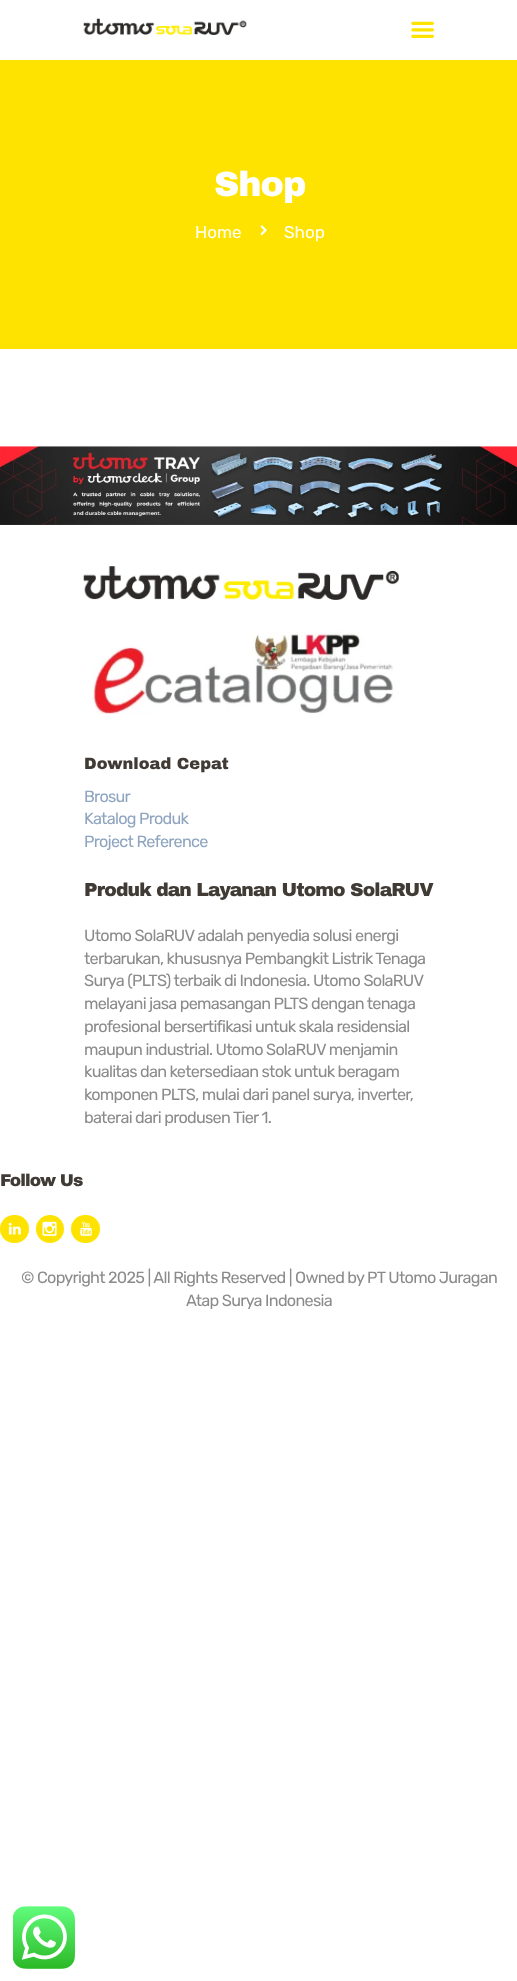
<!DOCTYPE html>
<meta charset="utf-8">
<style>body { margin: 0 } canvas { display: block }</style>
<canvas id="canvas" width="517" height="1981"></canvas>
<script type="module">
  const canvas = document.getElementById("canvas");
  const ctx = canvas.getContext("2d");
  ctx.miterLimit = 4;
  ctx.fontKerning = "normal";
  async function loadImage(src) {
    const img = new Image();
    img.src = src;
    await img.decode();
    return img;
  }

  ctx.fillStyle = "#ffffff";
  ctx.fillRect(0, 0, 517, 1981);
  ctx.drawImage(await loadImage("img1.png"), 83, 18, 164, 17);
  ctx.drawImage(await loadImage("img2.png"), 411, 21, 23, 17);
  ctx.fillStyle = "#ffe300";
  ctx.fillRect(0, 60, 517, 289);
  ctx.letterSpacing = "-1px";
  ctx.font = "900 35px Archivo Black";
  ctx.fillStyle = "#ffffff";
  ctx.fillText("Shop", 214, 196);
  ctx.letterSpacing = "0px";
  ctx.font = "17px Rubik";
  ctx.fillText("Home", 195, 238);
  ctx.drawImage(await loadImage("img3.png"), 260, 225, 7, 11);
  ctx.fillText("Shop", 284, 238);
  ctx.drawImage(await loadImage("img4.png"), 0, 446, 517, 79);
  ctx.drawImage(await loadImage("img5.png"), 83, 566, 316, 34);
  ctx.drawImage(await loadImage("img6.png"), 92, 631, 303, 84);
  ctx.font = "900 16.25px Archivo Black";
  ctx.fillStyle = "#413b35";
  ctx.fillText("Download Cepat", 84, 769);
  ctx.letterSpacing = "-0.73px";
  ctx.font = "16.25px Rubik";
  ctx.fillStyle = "#8ea4bf";
  ctx.fillText("Brosur", 84, 802);
  ctx.fillText("Katalog Produk", 84, 824);
  ctx.fillText("Project Reference", 84, 847);
  ctx.letterSpacing = "-0.9px";
  ctx.font = "900 18.75px Archivo Black";
  ctx.fillStyle = "#413b35";
  ctx.fillText("Produk dan Layanan Utomo SolaRUV", 84, 896);
  ctx.letterSpacing = "-0.73px";
  ctx.font = "16.25px Rubik";
  ctx.fillStyle = "#8b8b8b";
  ctx.fillText("Utomo SolaRUV adalah penyedia solusi energi", 84, 941);
  ctx.fillText("terbarukan, khususnya Pembangkit Listrik Tenaga", 84, 964);
  ctx.fillText("Surya (PLTS) terbaik di Indonesia. Utomo SolaRUV", 84, 986);
  ctx.fillText("melayani jasa pemasangan PLTS dengan tenaga", 84, 1009);
  ctx.fillText("profesional bersertifikasi untuk skala residensial", 84, 1032);
  ctx.fillText("maupun industrial. Utomo SolaRUV menjamin", 84, 1055);
  ctx.fillText("kualitas dan ketersediaan stok untuk beragam", 84, 1077);
  ctx.fillText("komponen PLTS, mulai dari panel surya, inverter,", 84, 1100);
  ctx.fillText("baterai dari produsen Tier 1.", 84, 1123);
  ctx.letterSpacing = "-0.9px";
  ctx.font = "900 17px Archivo Black";
  ctx.fillStyle = "#413b35";
  ctx.fillText("Follow Us", 0, 1186);
  ctx.fillStyle = "#ffe300";
  ctx.beginPath();
  ctx.roundRect(0, 1215, 29, 28, 14);
  ctx.fill();
  ctx.drawImage(await loadImage("img7.png"), 8, 1223, 13, 12);
  ctx.beginPath();
  ctx.arc(50, 1229, 14, 0, Math.PI * 2);
  ctx.fill();
  ctx.drawImage(await loadImage("img8.png"), 42, 1221, 15, 15);
  ctx.beginPath();
  ctx.roundRect(71, 1215, 29, 28, 14);
  ctx.fill();
  ctx.drawImage(await loadImage("img9.png"), 80, 1221, 12, 15);
  ctx.letterSpacing = "-0.73px";
  ctx.font = "16.25px Rubik";
  ctx.fillStyle = "#8b8b8b";
  ctx.fillText("© Copyright 2025 | All Rights Reserved | Owned by PT Utomo Juragan", 21, 1283);
  ctx.fillText("Atap Surya Indonesia", 186, 1306);
  ctx.drawImage(await loadImage("img10.png"), 13, 1906, 62, 63);
</script>
